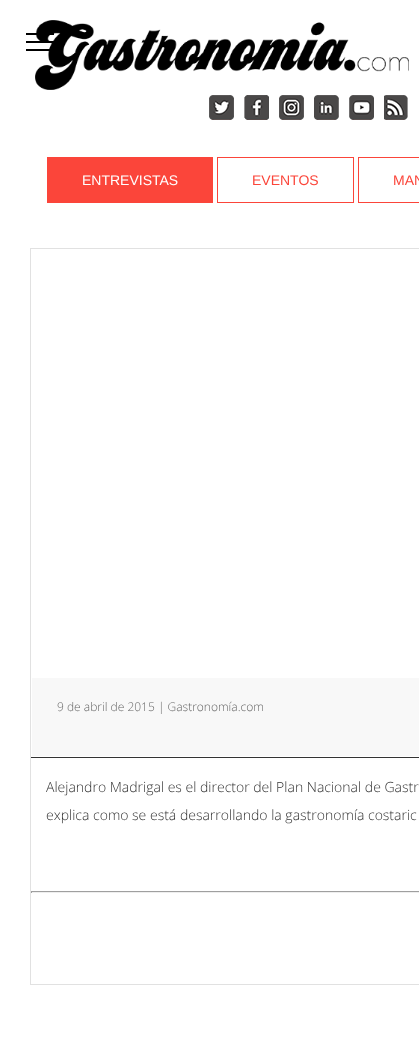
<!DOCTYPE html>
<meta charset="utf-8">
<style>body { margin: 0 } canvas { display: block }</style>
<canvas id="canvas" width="419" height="1049"></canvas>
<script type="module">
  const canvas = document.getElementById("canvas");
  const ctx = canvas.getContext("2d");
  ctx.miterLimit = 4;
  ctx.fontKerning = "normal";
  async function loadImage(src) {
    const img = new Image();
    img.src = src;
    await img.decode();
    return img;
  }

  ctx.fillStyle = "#ffffff";
  ctx.fillRect(0, 0, 419, 1049);
  ctx.drawImage(await loadImage("img1.png"), 35, 20, 374, 70);
  ctx.drawImage(await loadImage("img2.png"), 209, 95, 25, 25);
  ctx.drawImage(await loadImage("img3.png"), 244, 95, 25, 25);
  ctx.drawImage(await loadImage("img4.png"), 279, 95, 25, 25);
  ctx.drawImage(await loadImage("img5.png"), 314, 95, 25, 25);
  ctx.drawImage(await loadImage("img6.png"), 349, 95, 25, 25);
  ctx.drawImage(await loadImage("img7.png"), 384, 95, 24, 25);
  ctx.fillStyle = "#000000";
  ctx.fillRect(26, 33, 28, 2);
  ctx.fillRect(26, 41, 28, 2);
  ctx.fillRect(26, 49, 28, 2);
  ctx.fillStyle = "#fb453a";
  ctx.fillRect(47, 157, 166, 46);
  ctx.font = "14px Liberation Sans";
  ctx.fillStyle = "#ffffff";
  ctx.fillText("ENTREVISTAS", 82, 185);
  ctx.strokeStyle = "#fb453a";
  ctx.strokeRect(217.5, 157.5, 136, 45);
  ctx.fillStyle = "#fb453a";
  ctx.fillText("EVENTOS", 252, 185);
  ctx.strokeRect(358.5, 157.5, 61, 45);
  ctx.fillText("MAN", 393, 185);
  ctx.strokeStyle = "#e1e1e1";
  ctx.strokeRect(30.5, 248.5, 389, 736);
  ctx.fillStyle = "#f8f8f8";
  ctx.fillRect(32, 678, 387, 78);
  ctx.fillStyle = "#333333";
  ctx.fillRect(31, 757, 388, 1);
  ctx.font = "300 12px Open Sans";
  ctx.fillStyle = "#666666";
  ctx.fillText("9 de abril de 2015 | Gastronomía.com", 57, 711);
  ctx.font = "300 14px Open Sans";
  ctx.fillStyle = "#333333";
  ctx.fillText("Alejandro Madrigal es el director del Plan Nacional de Gastr", 46, 792);
  ctx.fillText("explica como se está desarrollando la gastronomía costaric", 46, 820);
  ctx.fillStyle = "#9f9f9f";
  ctx.fillRect(31, 891, 388, 1);
  ctx.fillStyle = "#eeeeee";
  ctx.fillRect(31, 892, 388, 1);
  ctx.fillStyle = "#9f9f9f";
  ctx.fillRect(31, 891, 1, 2);
</script>
